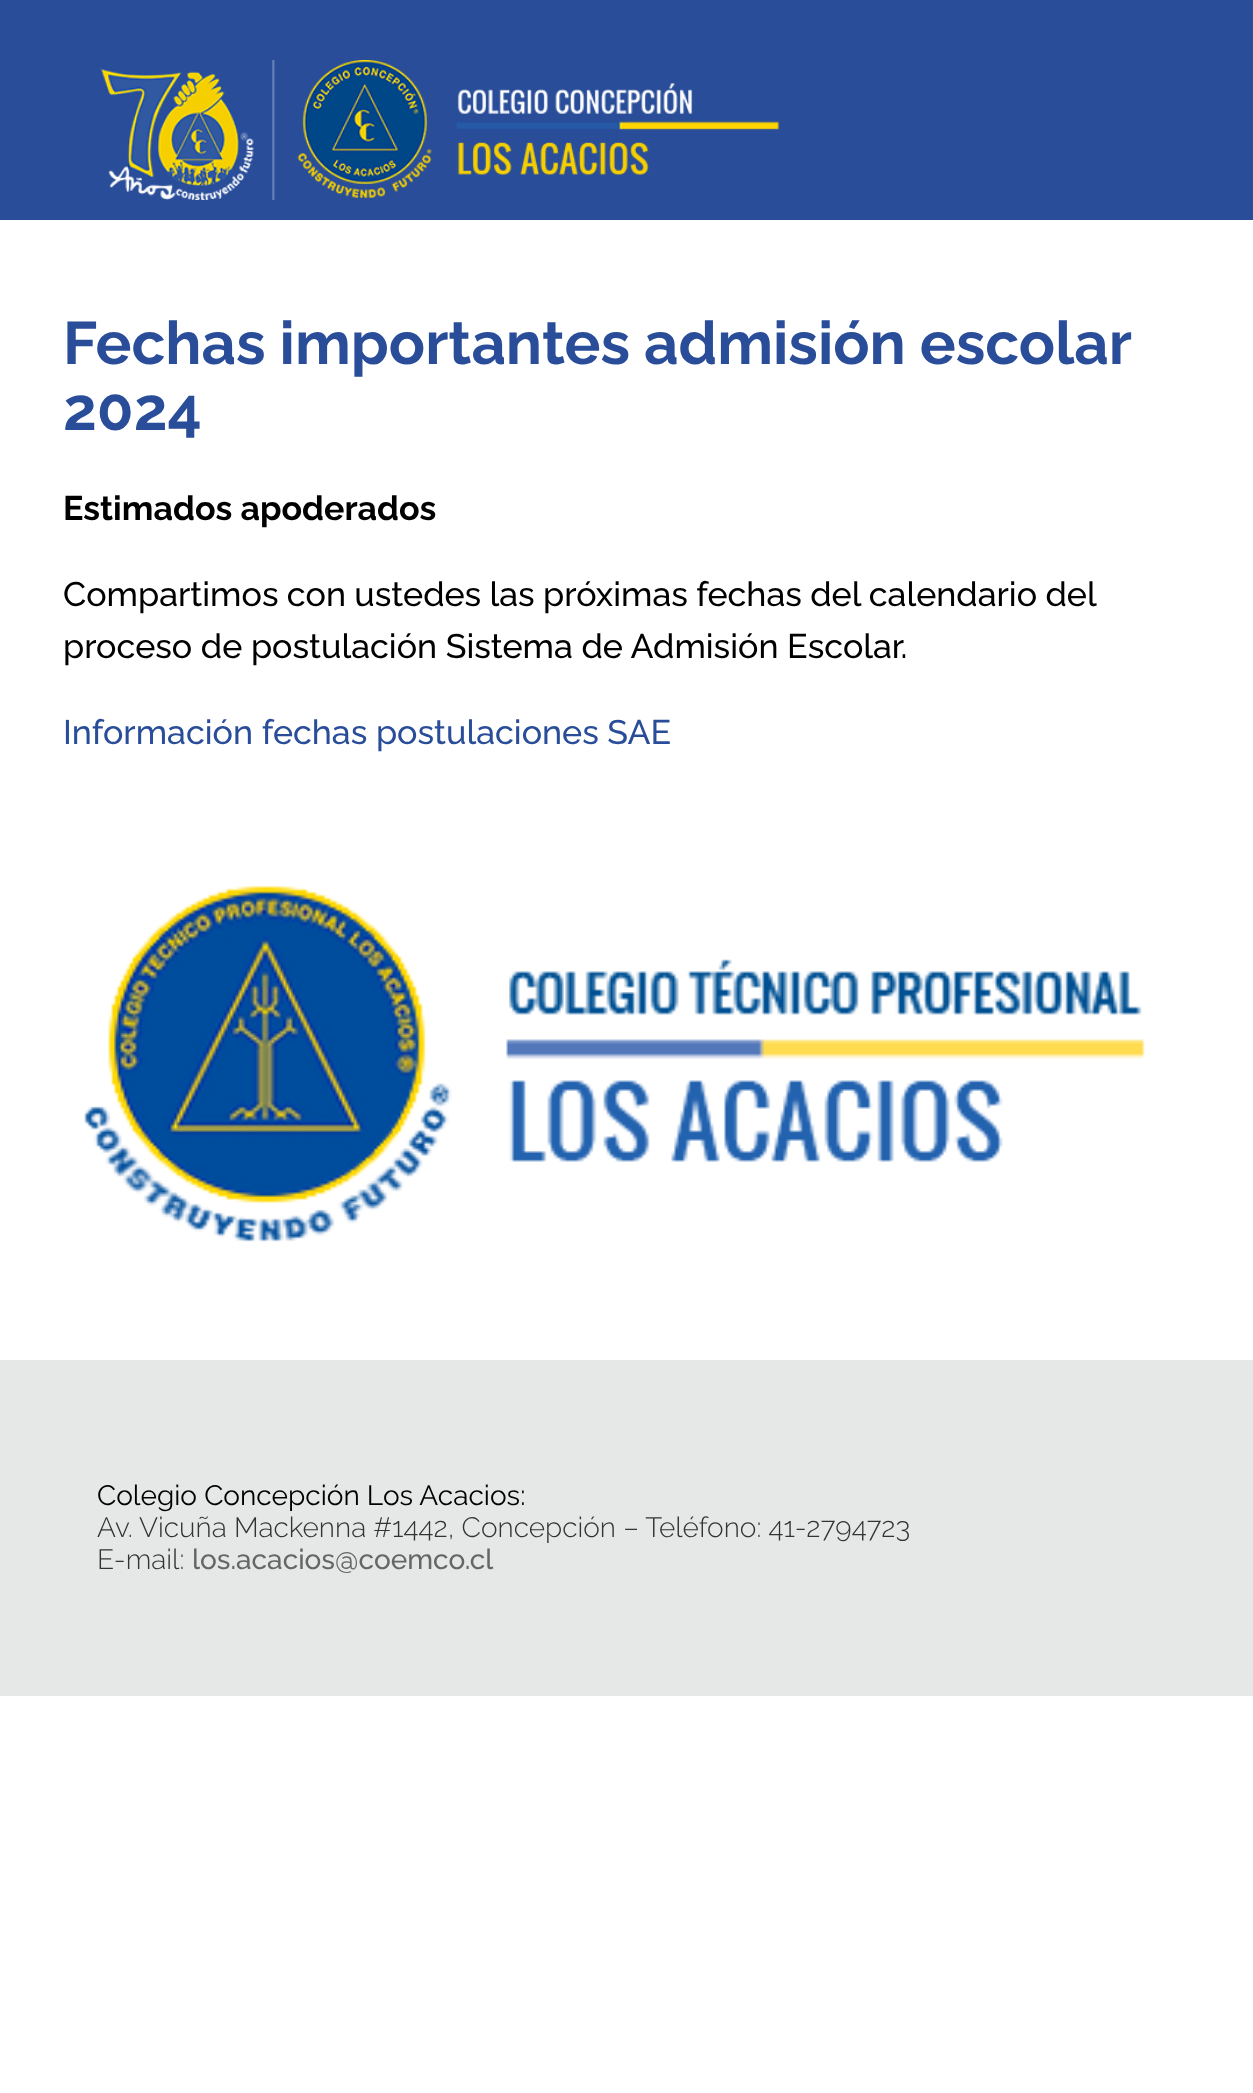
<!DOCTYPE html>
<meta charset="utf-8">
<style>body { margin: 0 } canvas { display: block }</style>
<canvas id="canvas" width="1253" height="2093"></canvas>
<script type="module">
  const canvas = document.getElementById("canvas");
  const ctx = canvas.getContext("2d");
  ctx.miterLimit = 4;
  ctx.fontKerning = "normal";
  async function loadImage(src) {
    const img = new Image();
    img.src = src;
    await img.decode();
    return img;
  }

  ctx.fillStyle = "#ffffff";
  ctx.fillRect(0, 0, 1253, 2093);
  ctx.fillStyle = "#294d99";
  ctx.fillRect(0, 0, 1253, 220);
  ctx.drawImage(await loadImage("img1.png"), 100, 60, 679, 140);
  ctx.wordSpacing = "-0.5px";
  ctx.font = "bold 60px Raleway";
  ctx.fillText("Fechas importantes admisión escolar", 63, 364);
  ctx.wordSpacing = "0px";
  ctx.fillText("2024", 63, 430);
  ctx.font = "bold 34px Raleway";
  ctx.fillStyle = "#000000";
  ctx.fillText("Estimados apoderados", 63, 520);
  ctx.wordSpacing = "-0.25px";
  ctx.font = "500 34px Raleway";
  ctx.fillText("Compartimos con ustedes las próximas fechas del calendario del", 63, 606);
  ctx.wordSpacing = "0px";
  ctx.fillText("proceso de postulación Sistema de Admisión Escolar.", 63, 658);
  ctx.fillStyle = "#294d99";
  ctx.fillText("Información fechas postulaciones SAE", 63, 744);
  ctx.drawImage(await loadImage("img2.png"), 84, 886, 1061, 356);
  ctx.fillStyle = "#e6e7e7";
  ctx.fillRect(0, 1360, 1253, 336);
  ctx.font = "28px Raleway";
  ctx.fillStyle = "#000000";
  ctx.fillText("Colegio Concepción Los Acacios:", 97, 1505);
  ctx.font = "300 28px Raleway";
  ctx.fillStyle = "#333333";
  ctx.fillText("Av. Vicuña Mackenna #1442, Concepción – Teléfono: 41-2794723", 97, 1537);
  ctx.fillText("E-mail:", 97, 1569);
  ctx.font = "500 28px Raleway";
  ctx.fillStyle = "#666666";
  ctx.fillText("los.acacios@coemco.cl", 192, 1569);
</script>
